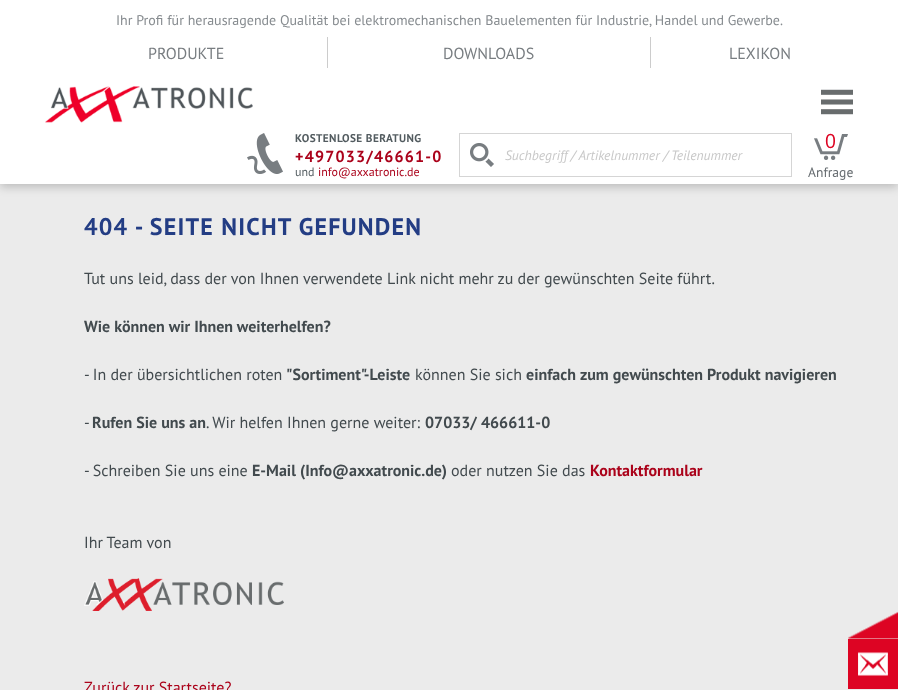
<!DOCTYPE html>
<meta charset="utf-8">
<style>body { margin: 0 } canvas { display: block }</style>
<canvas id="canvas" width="898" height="690"></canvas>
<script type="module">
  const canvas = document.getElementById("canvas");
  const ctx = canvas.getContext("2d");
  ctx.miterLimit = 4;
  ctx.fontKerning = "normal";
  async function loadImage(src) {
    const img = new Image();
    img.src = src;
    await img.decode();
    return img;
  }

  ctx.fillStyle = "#ebebeb";
  ctx.fillRect(0, 0, 898, 690);
  ctx.fillStyle = "rgba(0, 0, 0, 0.2)";
  ctx.filter = "blur(5px)";
  ctx.beginPath();
  ctx.rect(0, 3, 898, 184);
  ctx.fill();
  ctx.filter = "none";
  ctx.fillStyle = "#ffffff";
  ctx.fillRect(0, 0, 898, 184);
  ctx.font = "14px PT Sans";
  ctx.fillStyle = "#868b8f";
  ctx.fillText("Ihr Profi für herausragende Qualität bei elektromechanischen Bauelementen für Industrie, Handel und Gewerbe.", 116, 25);
  ctx.fillStyle = "#cccccc";
  ctx.fillRect(327, 37, 1, 31);
  ctx.font = "16px PT Sans";
  ctx.fillStyle = "#787d81";
  ctx.fillText("PRODUKTE", 148, 59);
  ctx.fillStyle = "#cccccc";
  ctx.fillRect(650, 37, 1, 31);
  ctx.fillStyle = "#787d81";
  ctx.fillText("DOWNLOADS", 443, 59);
  ctx.fillText("LEXIKON", 729, 59);
  ctx.drawImage(await loadImage("img1.png"), 45, 86, 208, 37);
  ctx.drawImage(await loadImage("img2.png"), 821, 89, 32, 26);
  ctx.drawImage(await loadImage("img3.png"), 247, 133, 36, 41);
  ctx.letterSpacing = "0.4px";
  ctx.font = "bold 11.25px PT Sans";
  ctx.fillStyle = "#535c60";
  ctx.fillText("KOSTENLOSE BERATUNG", 295, 142);
  ctx.letterSpacing = "1.2px";
  ctx.font = "bold 16px PT Sans";
  ctx.fillStyle = "#ab031b";
  ctx.fillText("+497033/46661-0", 295, 162);
  ctx.letterSpacing = "0px";
  ctx.font = "12px PT Sans";
  ctx.fillStyle = "#535c60";
  ctx.fillText("und", 295, 176);
  ctx.fillStyle = "#ab031b";
  ctx.fillText("info@axxatronic.de", 318, 176);
  ctx.drawImage(await loadImage("img4.png"), 470, 143, 24, 24);
  ctx.strokeStyle = "#d5d5d5";
  ctx.strokeRect(459.5, 133.5, 332, 43);
  ctx.font = "italic 13.6px PT Sans";
  ctx.fillStyle = "#c8c8c8";
  ctx.fillText("Suchbegriff / Artikelnummer / Teilenummer", 505, 160);
  ctx.drawImage(await loadImage("img5.png"), 814, 134, 34, 26);
  ctx.font = "20px PT Sans";
  ctx.fillStyle = "#dd0423";
  ctx.fillText("0", 825, 148);
  ctx.font = "13.6px PT Sans";
  ctx.fillStyle = "#656b6f";
  ctx.fillText("Anfrage", 808, 177);
  ctx.fillStyle = "#dd0423";
  ctx.fillRect(848, 639, 50, 50);
  ctx.drawImage(await loadImage("img6.png"), 858, 652, 30, 24);
  ctx.drawImage(await loadImage("img7.png"), 848, 611, 50, 28);
  ctx.letterSpacing = "1.2px";
  ctx.font = "bold 24px PT Sans";
  ctx.fillStyle = "#233d84";
  ctx.fillText("404 - SEITE NICHT GEFUNDEN", 84, 235);
  ctx.letterSpacing = "0px";
  ctx.font = "16px PT Sans";
  ctx.fillStyle = "#424a4e";
  ctx.fillText("Tut uns leid, dass der von Ihnen verwendete Link nicht mehr zu der gewünschten Seite führt.", 84, 284);
  ctx.font = "bold 16px PT Sans";
  ctx.fillText("Wie können wir Ihnen weiterhelfen?", 84, 332);
  ctx.font = "16px PT Sans";
  ctx.fillText("- In der übersichtlichen roten", 84, 380);
  ctx.font = "bold 16px PT Sans";
  ctx.fillText("\"Sortiment\"-Leiste", 286, 380);
  ctx.font = "16px PT Sans";
  ctx.fillText("können Sie sich", 415, 380);
  ctx.font = "bold 16px PT Sans";
  ctx.fillText("einfach zum gewünschten Produkt navigieren", 526, 380);
  ctx.font = "16px PT Sans";
  ctx.fillText("-", 84, 428);
  ctx.font = "bold 16px PT Sans";
  ctx.fillText("Rufen Sie uns an", 92, 428);
  ctx.font = "16px PT Sans";
  ctx.fillText(". Wir helfen Ihnen gerne weiter:", 206, 428);
  ctx.font = "bold 16px PT Sans";
  ctx.fillText("07033/ 466611-0", 425, 428);
  ctx.font = "16px PT Sans";
  ctx.fillText("- Schreiben Sie uns eine", 84, 476);
  ctx.font = "bold 16px PT Sans";
  ctx.fillText("E-Mail (Info@axxatronic.de)", 252, 476);
  ctx.font = "16px PT Sans";
  ctx.fillText("oder nutzen Sie das", 451, 476);
  ctx.font = "bold 16px PT Sans";
  ctx.fillStyle = "#ab031b";
  ctx.fillText("Kontaktformular", 590, 476);
  ctx.font = "16px PT Sans";
  ctx.fillStyle = "#424a4e";
  ctx.fillText("Ihr Team von", 84, 548);
  ctx.drawImage(await loadImage("img8.png"), 84, 578, 200, 33);
  ctx.fillStyle = "#ab031b";
  ctx.fillText("Zurück zur Startseite?", 84, 693);
</script>
